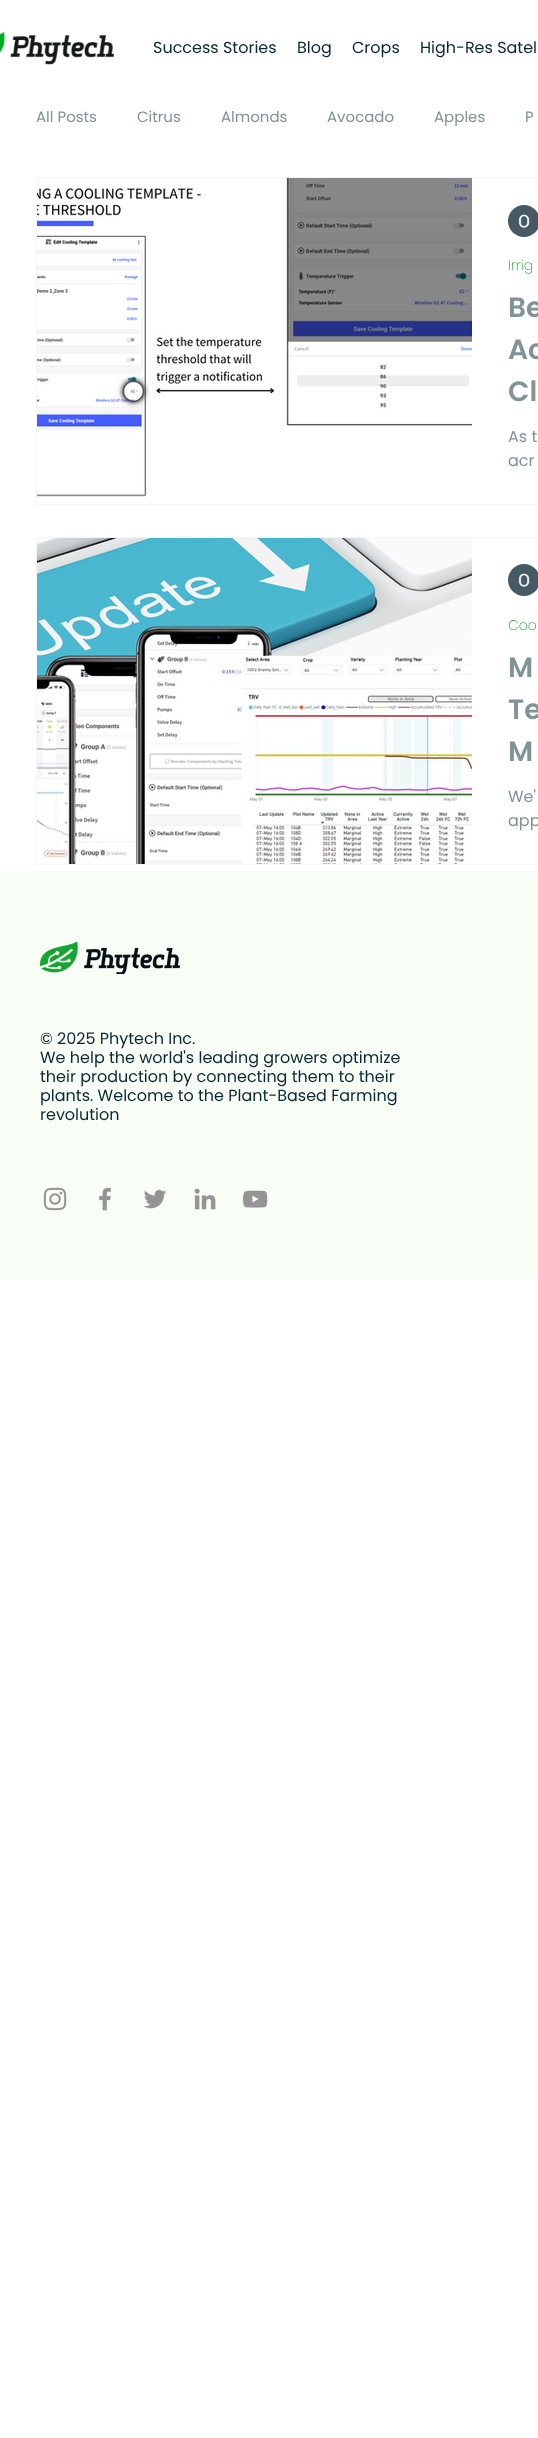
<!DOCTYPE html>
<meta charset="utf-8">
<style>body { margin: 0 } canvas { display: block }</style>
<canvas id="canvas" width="538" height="2438"></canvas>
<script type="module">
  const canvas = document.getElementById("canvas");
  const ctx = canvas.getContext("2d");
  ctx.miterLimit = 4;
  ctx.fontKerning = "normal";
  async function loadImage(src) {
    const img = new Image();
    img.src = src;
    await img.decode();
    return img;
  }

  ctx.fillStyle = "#ffffff";
  ctx.fillRect(0, 0, 538, 2438);
  ctx.drawImage(await loadImage("img1.png"), 0, 32, 114, 33);
  ctx.font = "16px Poppins";
  ctx.fillStyle = "#0b2933";
  ctx.fillText("Success Stories", 153, 53);
  ctx.fillText("Blog", 297, 53);
  ctx.fillText("Crops", 352, 53);
  ctx.fillText("High-Res Satel", 420, 53);
  ctx.font = "15px Poppins";
  ctx.fillStyle = "#819394";
  ctx.fillText("All Posts", 36, 122);
  ctx.fillText("Citrus", 137, 122);
  ctx.fillText("Almonds", 221, 122);
  ctx.fillText("Avocado", 327, 122);
  ctx.fillText("Apples", 434, 122);
  ctx.fillText("P", 525, 122);
  ctx.strokeStyle = "#f5f5f5";
  ctx.strokeRect(36.5, 177.5, 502, 327);
  ctx.drawImage(await loadImage("img2.png"), 37, 178, 435, 319);
  ctx.drawImage(await loadImage("img3.png"), 508, 205, 30, 32);
  ctx.font = "200 14px Poppins";
  ctx.fillStyle = "#15a631";
  ctx.fillText("Irrig", 508, 270);
  ctx.font = "600 28px Poppins";
  ctx.fillStyle = "#819394";
  ctx.fillText("Be", 508, 317);
  ctx.fillText("Ac", 508, 359);
  ctx.fillText("Cl", 508, 401);
  ctx.font = "16px Poppins";
  ctx.fillText("As t", 508, 442);
  ctx.fillText("acr", 508, 466);
  ctx.strokeRect(36.5, 537.5, 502, 327);
  ctx.drawImage(await loadImage("img4.png"), 37, 538, 435, 326);
  ctx.drawImage(await loadImage("img3.png"), 508, 564, 30, 32);
  ctx.font = "200 14px Poppins";
  ctx.fillStyle = "#15a631";
  ctx.fillText("Coo", 508, 630);
  ctx.font = "600 28px Poppins";
  ctx.fillStyle = "#819394";
  ctx.fillText("M", 508, 677);
  ctx.fillText("Te", 508, 719);
  ctx.fillText("M", 508, 761);
  ctx.font = "16px Poppins";
  ctx.fillText("We'", 508, 802);
  ctx.fillText("app", 508, 826);
  ctx.fillStyle = "#f8fdf5";
  ctx.fillRect(0, 871, 538, 408);
  ctx.drawImage(await loadImage("img5.png"), 40, 942, 140, 32);
  ctx.fillStyle = "#0b2933";
  ctx.fillText("© 2025 Phytech Inc.", 40, 1044);
  ctx.fillText("We help the world's leading growers optimize", 40, 1063);
  ctx.fillText("their production by connecting them to their", 40, 1082);
  ctx.fillText("plants. Welcome to the Plant-Based Farming", 40, 1101);
  ctx.fillText("revolution", 40, 1120);
  ctx.drawImage(await loadImage("img6.png"), 43, 1187, 24, 24);
  ctx.drawImage(await loadImage("img7.png"), 99, 1187, 12, 24);
  ctx.drawImage(await loadImage("img8.png"), 144, 1189, 23, 20);
  ctx.drawImage(await loadImage("img9.png"), 194, 1188, 22, 22);
  ctx.drawImage(await loadImage("img10.png"), 242, 1190, 26, 18);
</script>
